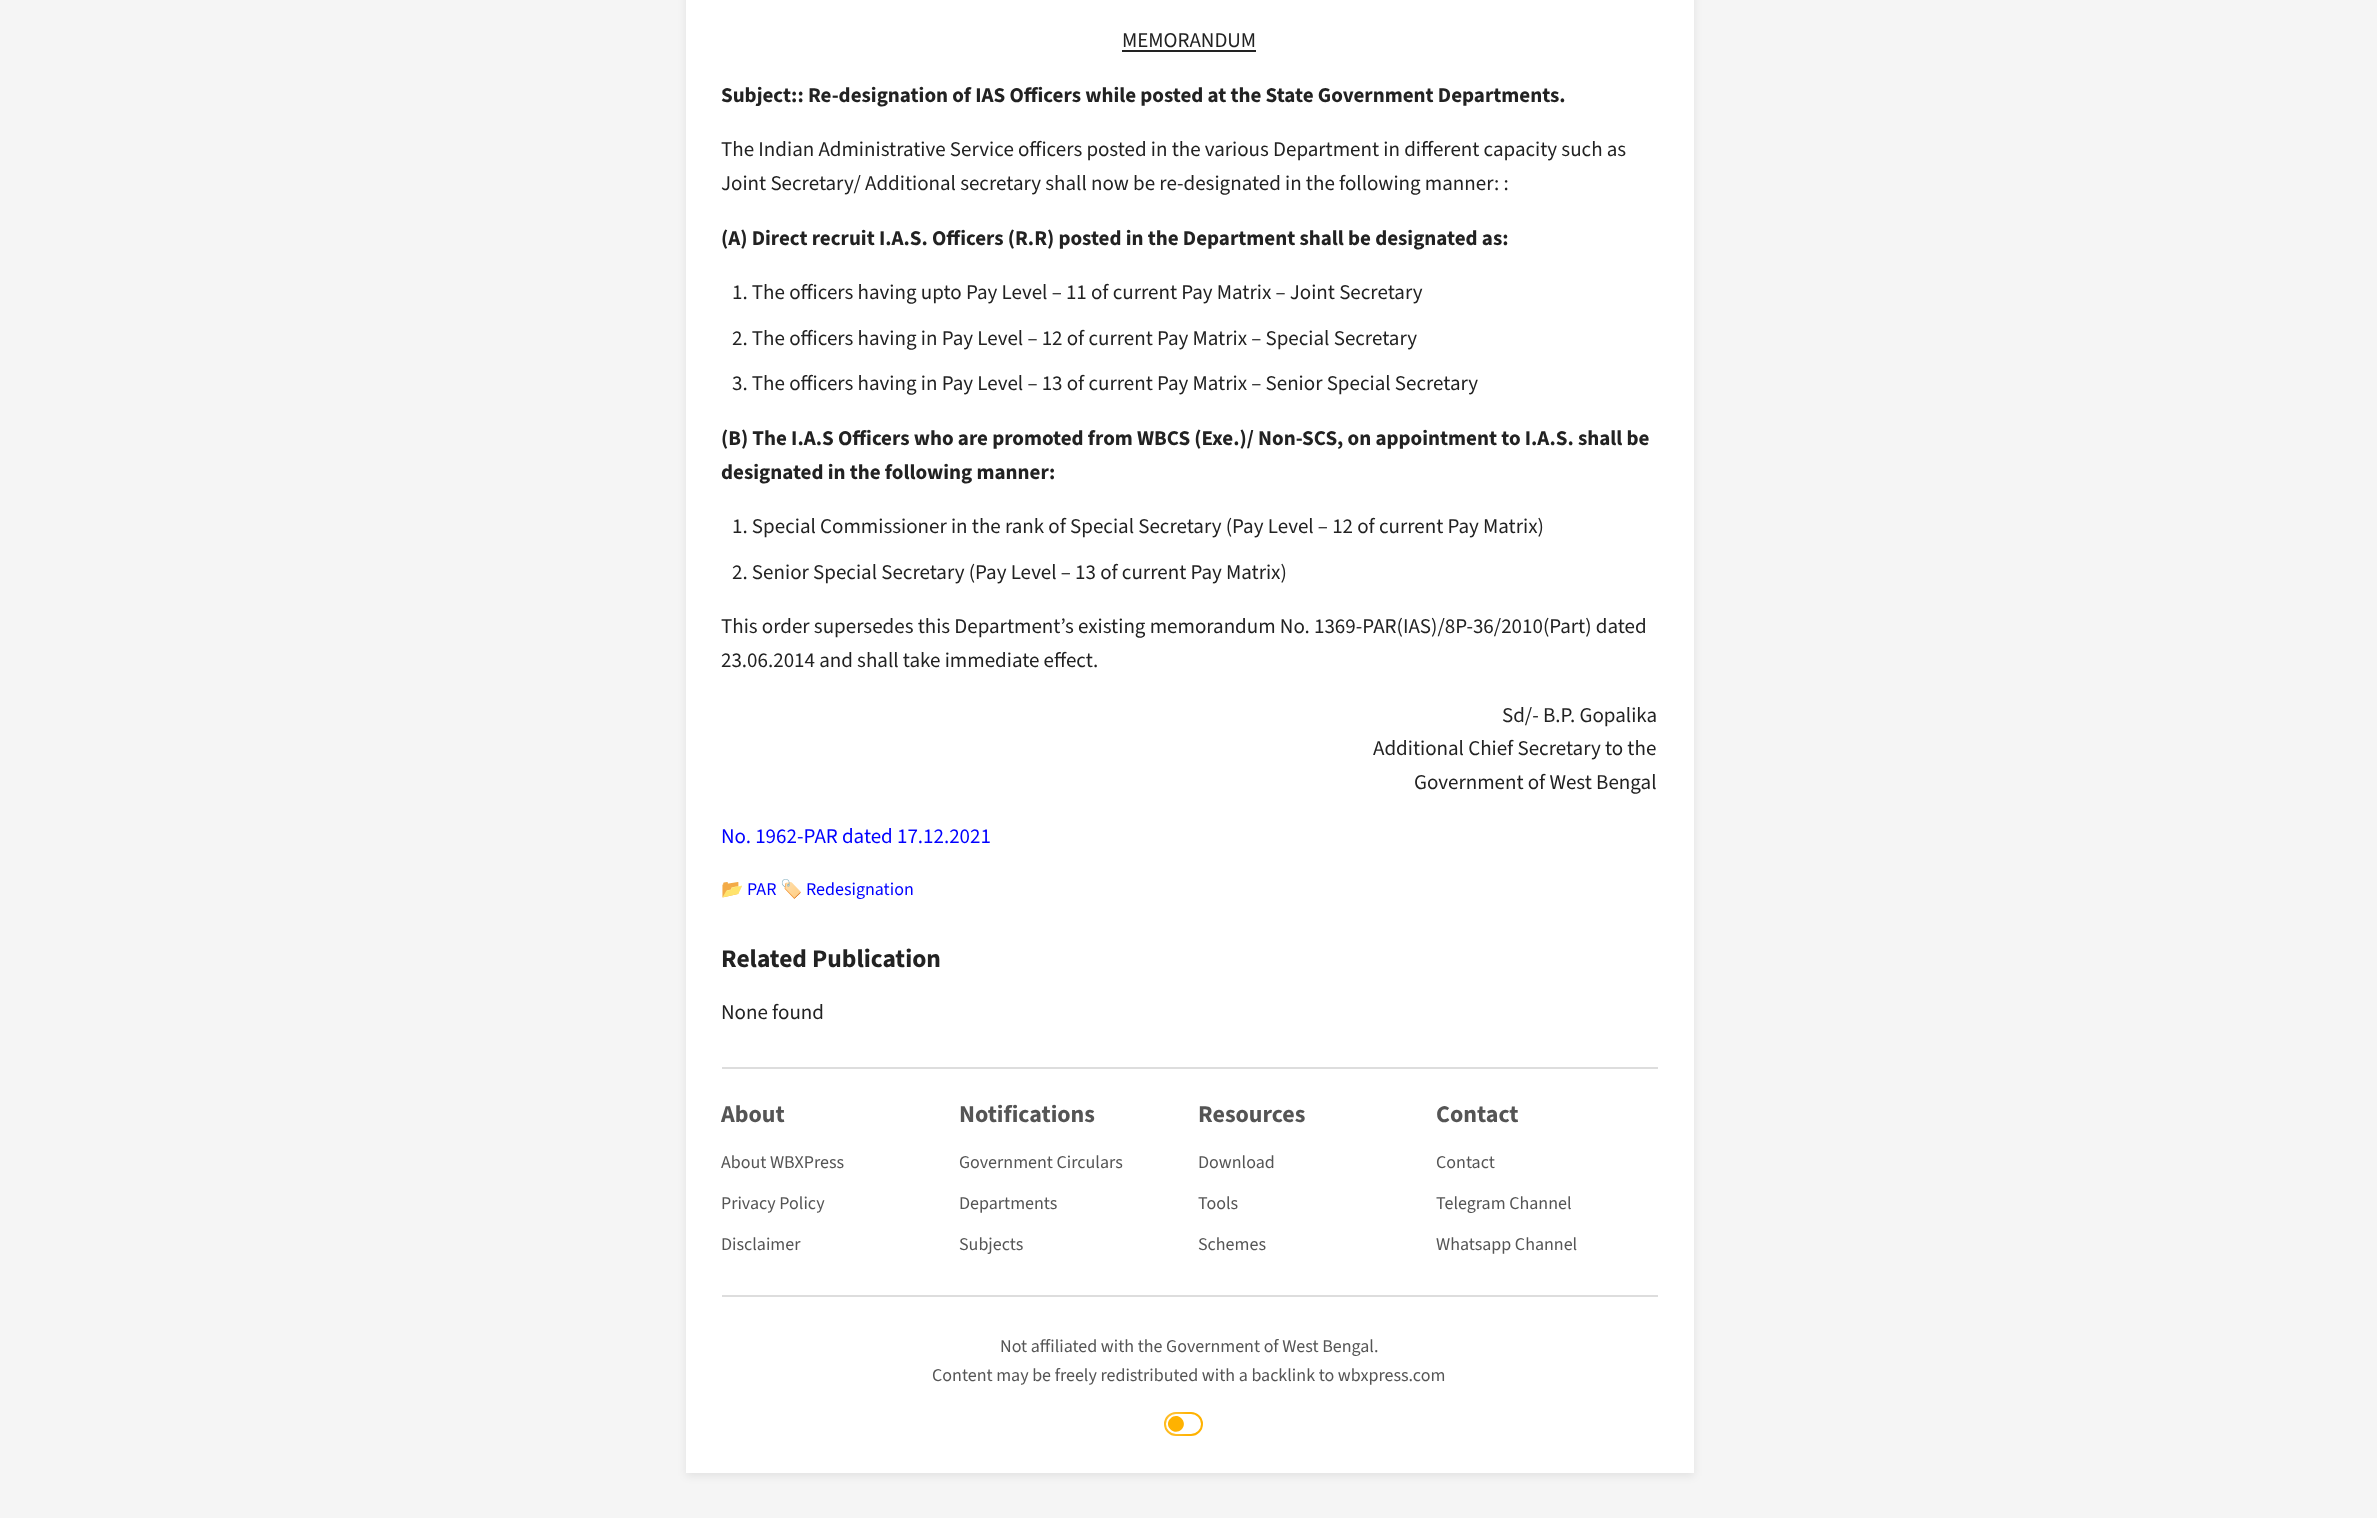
<!DOCTYPE html>
<meta charset="utf-8">
<style>body { margin: 0 } canvas { display: block }</style>
<canvas id="canvas" width="2377" height="1518"></canvas>
<script type="module">
  const canvas = document.getElementById("canvas");
  const ctx = canvas.getContext("2d");
  ctx.miterLimit = 4;
  ctx.fontKerning = "normal";

  ctx.fillStyle = "#f5f5f5";
  ctx.fillRect(0, 0, 2377, 1518);
  ctx.fillStyle = "rgba(0, 0, 0, 0.08)";
  ctx.filter = "blur(4.5px)";
  ctx.beginPath();
  ctx.rect(686, -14, 1008, 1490);
  ctx.fill();
  ctx.filter = "none";
  ctx.fillStyle = "#ffffff";
  ctx.fillRect(686, 0, 1008, 1473);
  ctx.font = "200 21px 'Source Sans 3'";
  ctx.fillStyle = "#222222";
  ctx.fillText("MEMORANDUM", 1122, 47);
  ctx.fillRect(1122, 50, 134, 2);
  ctx.font = "200 21px 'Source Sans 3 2'";
  ctx.fillText("Subject:: Re-designation of IAS Officers while posted at the State Government Departments.", 721, 102);
  ctx.font = "200 21px 'Source Sans 3'";
  ctx.fillText("The Indian Administrative Service officers posted in the various Department in different capacity such as", 721, 156);
  ctx.fillText("Joint Secretary/ Additional secretary shall now be re-designated in the following manner: :", 721, 190);
  ctx.font = "200 21px 'Source Sans 3 2'";
  ctx.fillText("(A) Direct recruit I.A.S. Officers (R.R) posted in the Department shall be designated as:", 721, 245);
  ctx.font = "200 21px 'Source Sans 3'";
  ctx.fillText("1. The officers having upto Pay Level – 11 of current Pay Matrix – Joint Secretary", 732, 299);
  ctx.fillText("2. The officers having in Pay Level – 12 of current Pay Matrix – Special Secretary", 732, 345);
  ctx.fillText("3. The officers having in Pay Level – 13 of current Pay Matrix – Senior Special Secretary", 732, 390);
  ctx.font = "200 21px 'Source Sans 3 2'";
  ctx.fillText("(B) The I.A.S Officers who are promoted from WBCS (Exe.)/ Non-SCS, on appointment to I.A.S. shall be", 721, 445);
  ctx.fillText("designated in the following manner:", 721, 479);
  ctx.font = "200 21px 'Source Sans 3'";
  ctx.fillText("1. Special Commissioner in the rank of Special Secretary (Pay Level – 12 of current Pay Matrix)", 732, 533);
  ctx.fillText("2. Senior Special Secretary (Pay Level – 13 of current Pay Matrix)", 732, 579);
  ctx.fillText("This order supersedes this Department’s existing memorandum No. 1369-PAR(IAS)/8P-36/2010(Part) dated", 721, 633);
  ctx.fillText("23.06.2014 and shall take immediate effect.", 721, 667);
  ctx.fillText("Sd/- B.P. Gopalika", 1502, 722);
  ctx.fillText("Additional Chief Secretary to the", 1373, 755);
  ctx.fillText("Government of West Bengal", 1414, 789);
  ctx.fillStyle = "#0000ff";
  ctx.fillText("No. 1962-PAR dated 17.12.2021", 721, 843);
  ctx.font = "18px Noto Color Emoji";
  ctx.fillStyle = "#222222";
  ctx.fillText("📂", 721, 895);
  ctx.font = "200 18px 'Source Sans 3'";
  ctx.fillStyle = "#0000ff";
  ctx.fillText("PAR", 747, 895);
  ctx.font = "18px Noto Color Emoji";
  ctx.fillStyle = "#222222";
  ctx.fillText("🏷️", 780, 895);
  ctx.font = "200 18px 'Source Sans 3'";
  ctx.fillStyle = "#0000ff";
  ctx.fillText("Redesignation", 806, 895);
  ctx.font = "200 25.5px 'Source Sans 3 2'";
  ctx.fillStyle = "#222222";
  ctx.fillText("Related Publication", 721, 967);
  ctx.font = "200 21px 'Source Sans 3'";
  ctx.fillText("None found", 721, 1019);
  ctx.fillStyle = "#dddddd";
  ctx.fillRect(722, 1067, 936, 2);
  ctx.font = "200 24px 'Source Sans 3 2'";
  ctx.fillStyle = "#555555";
  ctx.fillText("About", 721, 1122);
  ctx.font = "200 18px 'Source Sans 3'";
  ctx.fillText("About WBXPress", 721, 1168);
  ctx.fillText("Privacy Policy", 721, 1209);
  ctx.fillText("Disclaimer", 721, 1250);
  ctx.font = "200 24px 'Source Sans 3 2'";
  ctx.fillText("Notifications", 959, 1122);
  ctx.font = "200 18px 'Source Sans 3'";
  ctx.fillText("Government Circulars", 959, 1168);
  ctx.fillText("Departments", 959, 1209);
  ctx.fillText("Subjects", 959, 1250);
  ctx.font = "200 24px 'Source Sans 3 2'";
  ctx.fillText("Resources", 1198, 1122);
  ctx.font = "200 18px 'Source Sans 3'";
  ctx.fillText("Download", 1198, 1168);
  ctx.fillText("Tools", 1198, 1209);
  ctx.fillText("Schemes", 1198, 1250);
  ctx.font = "200 24px 'Source Sans 3 2'";
  ctx.fillText("Contact", 1436, 1122);
  ctx.font = "200 18px 'Source Sans 3'";
  ctx.fillText("Contact", 1436, 1168);
  ctx.fillText("Telegram Channel", 1436, 1209);
  ctx.fillText("Whatsapp Channel", 1436, 1250);
  ctx.fillStyle = "#dddddd";
  ctx.fillRect(722, 1295, 936, 2);
  ctx.fillStyle = "#555555";
  ctx.fillText("Not affiliated with the Government of West Bengal.", 1000, 1352);
  ctx.fillText("Content may be freely redistributed with a backlink to wbxpress.com", 932, 1381);
  ctx.beginPath();
  ctx.roundRect(1165, 1413, 37, 22, 11);
  ctx.strokeStyle = "#ffb200";
  ctx.lineWidth = 2;
  ctx.stroke();
  ctx.fillStyle = "#ffffff";
  ctx.filter = "blur(5px)";
  ctx.beginPath();
  ctx.roundRect(1169, 1416, 15, 15, 7.5);
  ctx.fill();
  ctx.filter = "none";
  ctx.fillStyle = "#ffb200";
  ctx.beginPath();
  ctx.moveTo(1170.5, 1418.5);
  ctx.bezierCurveTo(1177.5, 1411, 1189, 1422, 1181.5, 1429.5);
  ctx.bezierCurveTo(1174, 1436.5, 1163, 1425.5, 1170.5, 1418.5);
  ctx.closePath();
  ctx.fill();
</script>
